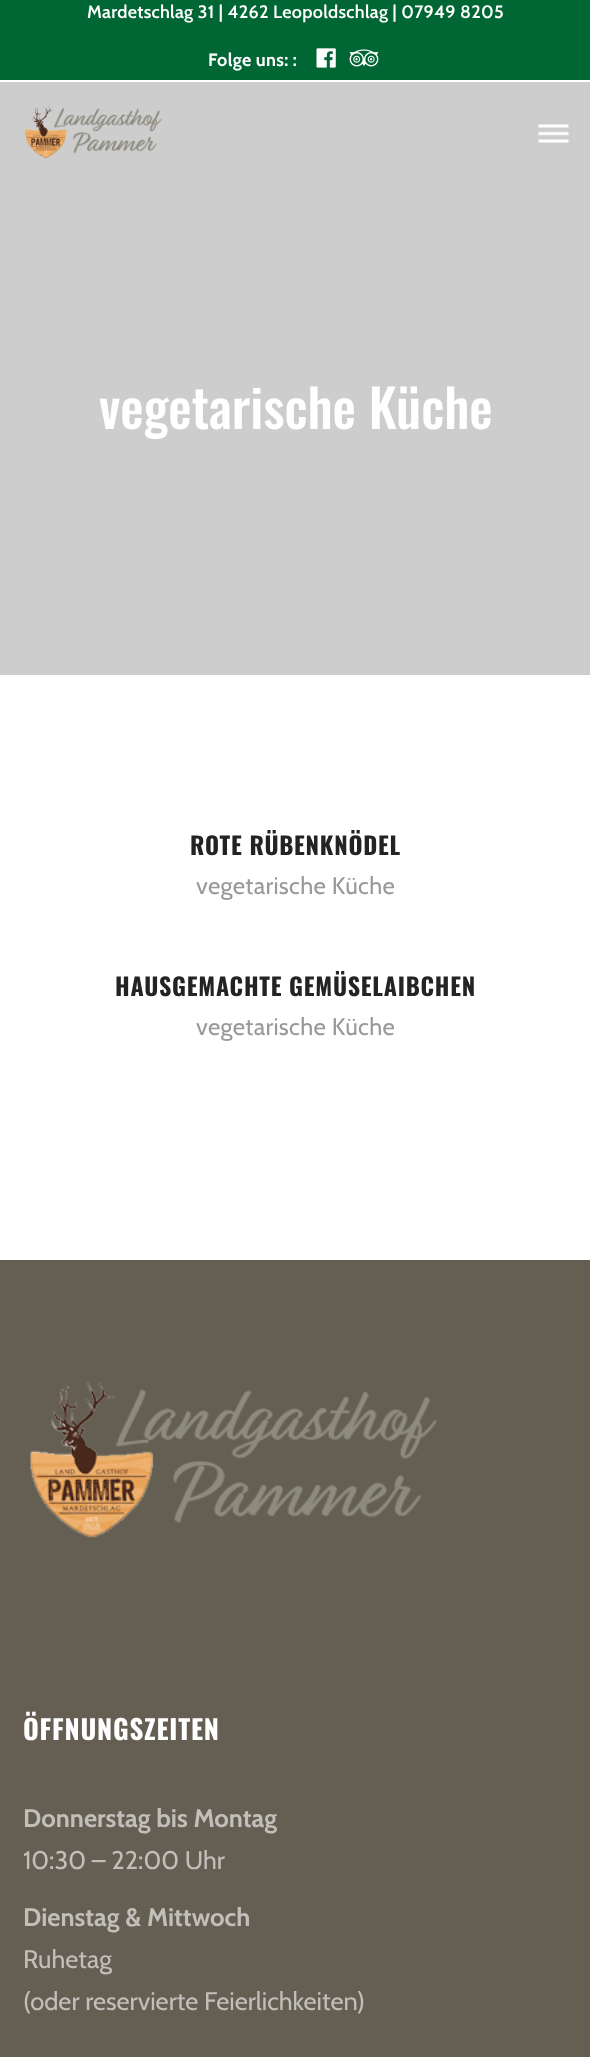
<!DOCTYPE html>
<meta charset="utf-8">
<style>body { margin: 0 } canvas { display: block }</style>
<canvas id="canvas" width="590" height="2057"></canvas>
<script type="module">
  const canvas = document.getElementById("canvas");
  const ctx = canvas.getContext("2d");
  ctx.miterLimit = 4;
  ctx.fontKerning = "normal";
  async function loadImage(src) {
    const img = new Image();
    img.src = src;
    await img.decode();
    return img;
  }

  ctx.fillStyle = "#ffffff";
  ctx.fillRect(0, 0, 590, 2057);
  ctx.fillStyle = "#006633";
  ctx.fillRect(0, 0, 590, 80);
  ctx.letterSpacing = "0.3px";
  ctx.font = "600 18px Cabin";
  ctx.fillStyle = "#ffffff";
  ctx.fillText("Mardetschlag 31 | 4262 Leopoldschlag | 07949 8205", 87, 18);
  ctx.font = "bold 18px Cabin";
  ctx.fillText("Folge uns: :", 208, 66);
  ctx.drawImage(await loadImage("img1.png"), 316, 48, 20, 20);
  ctx.drawImage(await loadImage("img2.png"), 349, 49, 30, 18);
  ctx.fillStyle = "#cdcdcd";
  ctx.fillRect(0, 82, 590, 593);
  ctx.drawImage(await loadImage("img3.png"), 25, 106, 137, 52);
  ctx.drawImage(await loadImage("img4.png"), 538, 124, 31, 19);
  ctx.letterSpacing = "0px";
  ctx.font = "500 52.5px Oswald";
  ctx.fillStyle = "#ffffff";
  ctx.fillText("vegetarische Küche", 99, 429);
  ctx.letterSpacing = "0.75px";
  ctx.font = "bold 24px Oswald";
  ctx.fillStyle = "#232323";
  ctx.fillText("ROTE RÜBENKNÖDEL", 190, 855);
  ctx.letterSpacing = "0.3px";
  ctx.font = "24px Cabin";
  ctx.fillStyle = "#999999";
  ctx.fillText("vegetarische Küche", 196, 894);
  ctx.letterSpacing = "0.75px";
  ctx.font = "bold 24px Oswald";
  ctx.fillStyle = "#232323";
  ctx.fillText("HAUSGEMACHTE GEMÜSELAIBCHEN", 115, 996);
  ctx.letterSpacing = "0.3px";
  ctx.font = "24px Cabin";
  ctx.fillStyle = "#999999";
  ctx.fillText("vegetarische Küche", 196, 1035);
  ctx.fillStyle = "#655f53";
  ctx.fillRect(0, 1260, 590, 797);
  ctx.drawImage(await loadImage("img5.png"), 30, 1381, 407, 157);
  ctx.letterSpacing = "0.75px";
  ctx.font = "bold 27px Oswald";
  ctx.fillStyle = "#ffffff";
  ctx.fillText("ÖFFNUNGSZEITEN", 23, 1740);
  ctx.letterSpacing = "0px";
  ctx.font = "bold 25.5px Cabin";
  ctx.fillStyle = "#c1bfba";
  ctx.fillText("Donnerstag bis Montag", 23, 1827);
  ctx.font = "25.5px Cabin";
  ctx.fillText("10:30 – 22:00 Uhr", 23, 1869);
  ctx.font = "bold 25.5px Cabin";
  ctx.fillText("Dienstag & Mittwoch", 23, 1926);
  ctx.font = "25.5px Cabin";
  ctx.fillText("Ruhetag", 23, 1968);
  ctx.fillText("(oder reservierte Feierlichkeiten)", 23, 2010);
</script>
